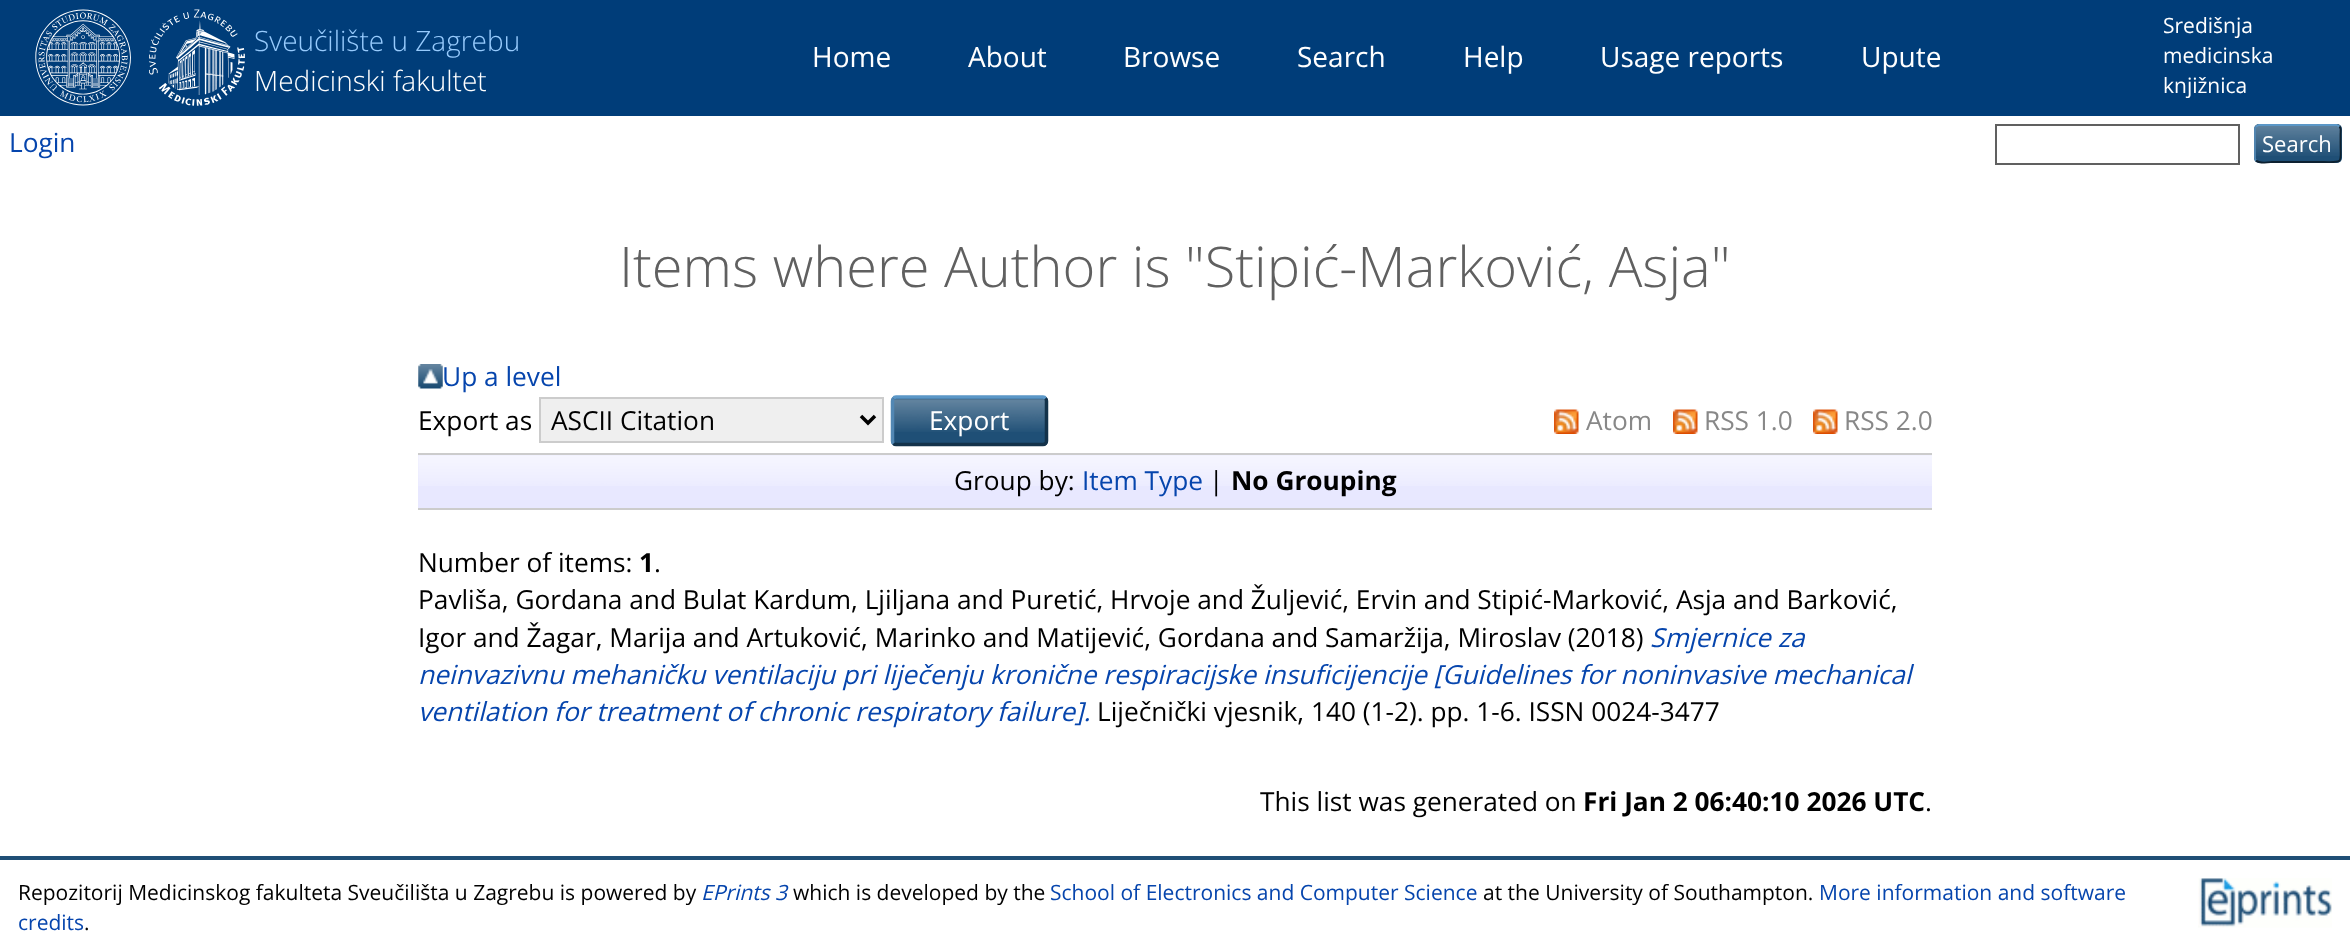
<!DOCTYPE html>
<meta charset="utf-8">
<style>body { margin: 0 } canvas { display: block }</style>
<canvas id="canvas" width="2350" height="947"></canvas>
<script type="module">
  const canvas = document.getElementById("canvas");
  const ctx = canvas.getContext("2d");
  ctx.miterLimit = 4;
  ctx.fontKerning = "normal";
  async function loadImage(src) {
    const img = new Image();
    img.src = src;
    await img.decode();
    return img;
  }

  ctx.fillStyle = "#ffffff";
  ctx.fillRect(0, 0, 2350, 947);
  ctx.fillStyle = "#003d79";
  ctx.fillRect(0, 0, 2350, 116);
  ctx.drawImage(await loadImage("img1.png"), 35, 9, 96, 97);
  ctx.drawImage(await loadImage("img2.png"), 149, 9, 96, 97);
  ctx.font = "300 28px Open Sans";
  ctx.fillStyle = "#97cbfd";
  ctx.fillText("Sveučilište u Zagrebu", 254, 51);
  ctx.fillStyle = "#ffffff";
  ctx.fillText("Medicinski fakultet", 254, 91);
  ctx.font = "21px Open Sans";
  ctx.fillText("Središnja", 2163, 33);
  ctx.fillText("medicinska", 2163, 63);
  ctx.fillText("knjižnica", 2163, 93);
  ctx.font = "28px Open Sans";
  ctx.fillText("Home", 812, 67);
  ctx.fillText("About", 968, 67);
  ctx.fillText("Browse", 1123, 67);
  ctx.fillText("Search", 1297, 67);
  ctx.fillText("Help", 1463, 67);
  ctx.fillText("Usage reports", 1600, 67);
  ctx.fillText("Upute", 1861, 67);
  ctx.font = "26.25px Open Sans";
  ctx.fillStyle = "#0645ad";
  ctx.fillText("Login", 9, 152);
  ctx.strokeStyle = "#606060";
  ctx.lineWidth = 2;
  ctx.strokeRect(1996, 125, 243, 39);
  ctx.fillStyle = "#1f4f76";
  ctx.beginPath();
  ctx.roundRect(2254, 124, 88, 39, 5);
  ctx.fill();
  ctx.drawImage(await loadImage("img3.png"), 2254, 124, 88, 32);
  ctx.beginPath();
  ctx.moveTo(2256, 126.5);
  ctx.lineTo(2259, 125);
  ctx.lineTo(2336.5, 125);
  ctx.lineTo(2339.5, 126.5);
  ctx.strokeStyle = "#5b97c7";
  ctx.lineWidth = 1.8;
  ctx.stroke();
  ctx.beginPath();
  ctx.moveTo(2339.5, 126.5);
  ctx.bezierCurveTo(2341.5, 128.5, 2340.5, 132, 2340.5, 134);
  ctx.lineTo(2340.5, 143.5);
  ctx.bezierCurveTo(2340.5, 164, 2344, 162, 2323.5, 162);
  ctx.lineTo(2272, 162);
  ctx.bezierCurveTo(2270.5, 162, 2259.5, 164, 2256, 160.5);
  ctx.strokeStyle = "#0d2131";
  ctx.stroke();
  ctx.beginPath();
  ctx.moveTo(2256, 160.5);
  ctx.bezierCurveTo(2255.5, 160, 2255, 158.5, 2255, 157.5);
  ctx.lineTo(2255, 129.5);
  ctx.bezierCurveTo(2255, 128.5, 2255.5, 127, 2256, 126.5);
  ctx.strokeStyle = "#5287b3";
  ctx.stroke();
  ctx.font = "22px Open Sans";
  ctx.fillStyle = "#ffffff";
  ctx.fillText("Search", 2262, 152);
  ctx.font = "300 56px Open Sans";
  ctx.fillStyle = "#606060";
  ctx.fillText("Items where Author is \"Stipić-Marković, Asja\"", 619, 287);
  ctx.drawImage(await loadImage("img4.png"), 418, 364, 25, 25);
  ctx.font = "26.25px Open Sans";
  ctx.fillStyle = "#0645ad";
  ctx.fillText("Up a level", 442, 386);
  ctx.fillStyle = "#000000";
  ctx.fillText("Export as", 418, 430);
  ctx.fillStyle = "#efefef";
  ctx.beginPath();
  ctx.rect(540, 398, 343, 44);
  ctx.fill();
  ctx.strokeStyle = "#cccccc";
  ctx.lineWidth = 2;
  ctx.stroke();
  ctx.beginPath();
  ctx.moveTo(861, 416);
  ctx.lineTo(868, 423);
  ctx.lineTo(875, 416);
  ctx.strokeStyle = "#000000";
  ctx.lineWidth = 3.5;
  ctx.stroke();
  ctx.fillStyle = "#000000";
  ctx.fillText("ASCII Citation", 551, 430);
  ctx.fillStyle = "#1f4f76";
  ctx.beginPath();
  ctx.roundRect(891, 396, 157, 50, 5);
  ctx.fill();
  ctx.drawImage(await loadImage("img5.png"), 891, 398, 157, 34);
  ctx.beginPath();
  ctx.moveTo(893.5, 398.5);
  ctx.bezierCurveTo(894, 397.5, 895, 397, 896, 397);
  ctx.lineTo(1043, 397);
  ctx.bezierCurveTo(1044, 397, 1045, 397.5, 1045.5, 398.5);
  ctx.strokeStyle = "#5b97c7";
  ctx.stroke();
  ctx.beginPath();
  ctx.moveTo(1045.5, 398.5);
  ctx.bezierCurveTo(1046, 399, 1046.5, 400, 1046.5, 401);
  ctx.lineTo(1046.5, 441);
  ctx.bezierCurveTo(1046.5, 442, 1046, 443, 1045.5, 443.5);
  ctx.bezierCurveTo(1045, 444, 1044, 444.5, 1043, 444.5);
  ctx.lineTo(896, 444.5);
  ctx.bezierCurveTo(895, 444.5, 894, 444, 893.5, 443.5);
  ctx.strokeStyle = "#13324a";
  ctx.stroke();
  ctx.beginPath();
  ctx.moveTo(893.5, 443.5);
  ctx.bezierCurveTo(893, 443, 892.5, 442, 892.5, 441);
  ctx.lineTo(892.5, 401);
  ctx.bezierCurveTo(892.5, 400, 893, 399, 893.5, 398.5);
  ctx.strokeStyle = "#5287b3";
  ctx.stroke();
  ctx.fillStyle = "#ffffff";
  ctx.fillText("Export", 929, 430);
  ctx.drawImage(await loadImage("img6.png"), 1554, 409, 25, 25);
  ctx.fillStyle = "#888888";
  ctx.fillText("Atom", 1586, 430);
  ctx.drawImage(await loadImage("img6.png"), 1673, 409, 25, 25);
  ctx.fillText("RSS 1.0", 1704, 430);
  ctx.drawImage(await loadImage("img7.png"), 1813, 409, 25, 25);
  ctx.fillText("RSS 2.0", 1844, 430);
  ctx.fillStyle = "#e8e8ff";
  ctx.fillRect(418, 455, 1514, 53);
  ctx.drawImage(await loadImage("img8.png"), 418, 455, 1514, 31);
  ctx.fillStyle = "#cccccc";
  ctx.fillRect(418, 453, 1514, 2);
  ctx.fillRect(418, 508, 1514, 2);
  ctx.fillStyle = "#000000";
  ctx.fillText("Group by:", 954, 490);
  ctx.fillStyle = "#0645ad";
  ctx.fillText("Item Type", 1082, 490);
  ctx.fillStyle = "#000000";
  ctx.fillText("|", 1209, 490);
  ctx.font = "bold 26.25px Open Sans";
  ctx.fillText("No Grouping", 1231, 490);
  ctx.font = "26.25px Open Sans";
  ctx.fillText("Number of items:", 418, 572);
  ctx.font = "bold 26.25px Open Sans";
  ctx.fillText("1", 639, 572);
  ctx.font = "26.25px Open Sans";
  ctx.fillText(".", 654, 572);
  ctx.fillText("Pavliša, Gordana and Bulat Kardum, Ljiljana and Puretić, Hrvoje and Žuljević, Ervin and Stipić-Marković, Asja and Barković,", 418, 609);
  ctx.fillText("Igor and Žagar, Marija and Artuković, Marinko and Matijević, Gordana and Samaržija, Miroslav (2018)", 418, 647);
  ctx.font = "italic 26.25px Open Sans";
  ctx.fillStyle = "#0645ad";
  ctx.fillText("Smjernice za", 1650, 647);
  ctx.fillText("neinvazivnu mehaničku ventilaciju pri liječenju kronične respiracijske insuficijencije [Guidelines for noninvasive mechanical", 418, 684);
  ctx.fillText("ventilation for treatment of chronic respiratory failure].", 418, 721);
  ctx.font = "26.25px Open Sans";
  ctx.fillStyle = "#000000";
  ctx.fillText("Liječnički vjesnik, 140 (1-2). pp. 1-6. ISSN 0024-3477", 1097, 721);
  ctx.fillText("This list was generated on", 1260, 811);
  ctx.font = "bold 26.25px Open Sans";
  ctx.fillText("Fri Jan 2 06:40:10 2026 UTC", 1583, 811);
  ctx.font = "26.25px Open Sans";
  ctx.fillText(".", 1925, 811);
  ctx.fillStyle = "#204f76";
  ctx.fillRect(0, 856, 2350, 4);
  ctx.font = "21px Open Sans";
  ctx.fillStyle = "#000000";
  ctx.fillText("Repozitorij Medicinskog fakulteta Sveučilišta u Zagrebu is powered by", 18, 900);
  ctx.font = "italic 21px Open Sans";
  ctx.fillStyle = "#0645ad";
  ctx.fillText("EPrints 3", 701, 900);
  ctx.font = "21px Open Sans";
  ctx.fillStyle = "#000000";
  ctx.fillText("which is developed by the", 793, 900);
  ctx.fillStyle = "#0645ad";
  ctx.fillText("School of Electronics and Computer Science", 1050, 900);
  ctx.fillStyle = "#000000";
  ctx.fillText("at the University of Southampton.", 1483, 900);
  ctx.fillStyle = "#0645ad";
  ctx.fillText("More information and software", 1819, 900);
  ctx.fillText("credits", 18, 930);
  ctx.fillStyle = "#000000";
  ctx.fillText(".", 84, 930);
  ctx.drawImage(await loadImage("img9.png"), 2198, 878, 134, 50);
</script>
